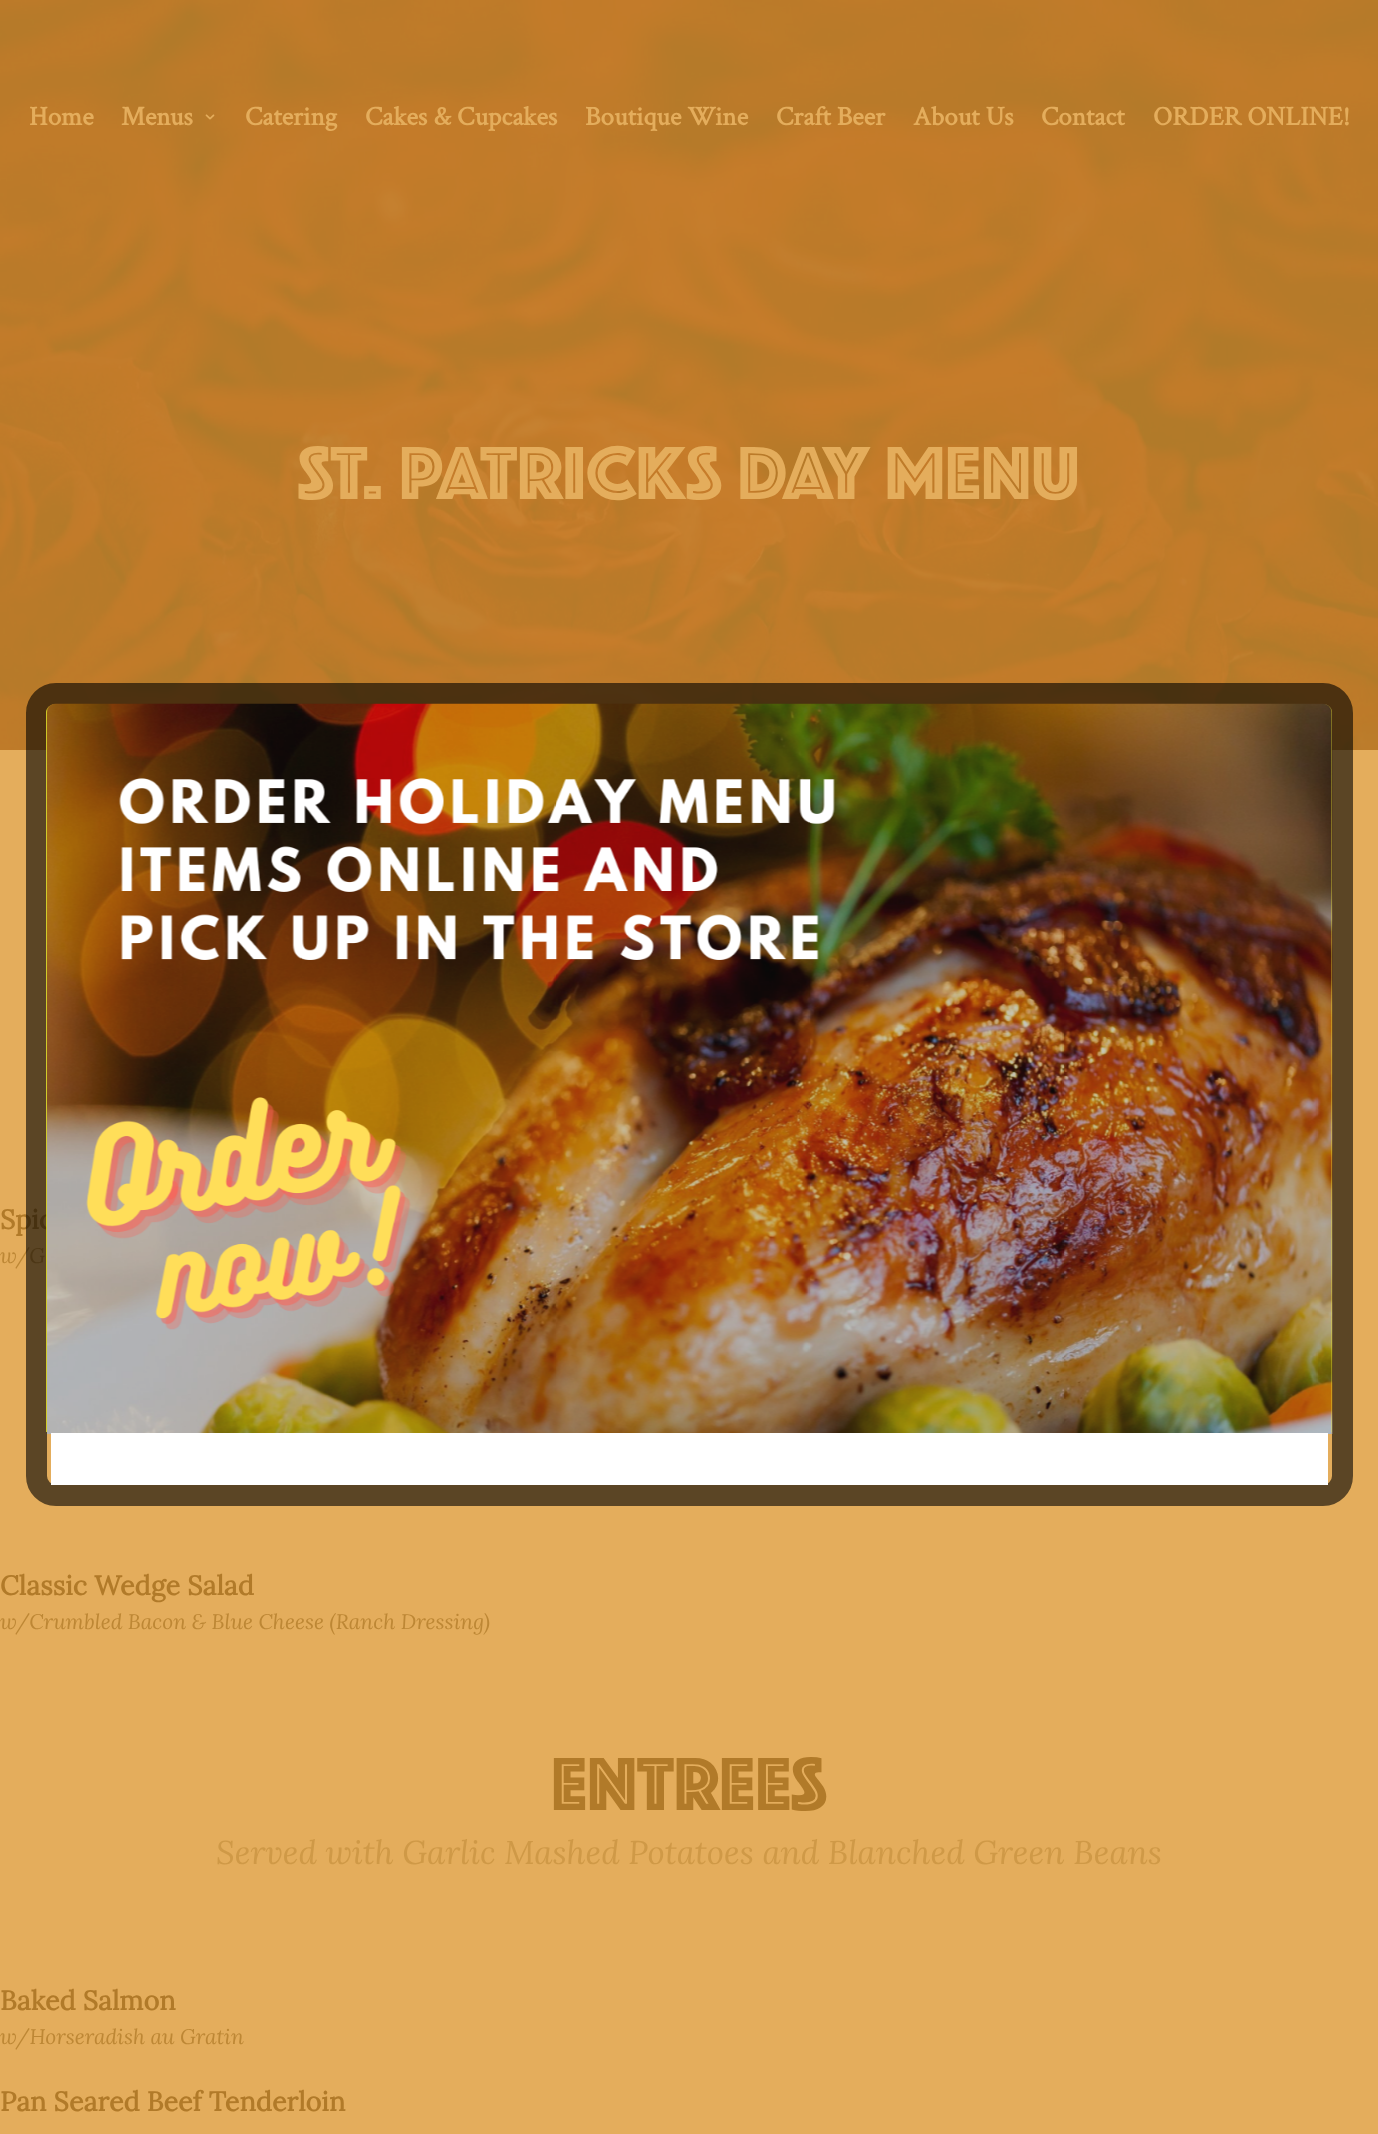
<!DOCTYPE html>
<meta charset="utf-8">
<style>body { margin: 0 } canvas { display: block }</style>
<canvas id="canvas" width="1378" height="2134"></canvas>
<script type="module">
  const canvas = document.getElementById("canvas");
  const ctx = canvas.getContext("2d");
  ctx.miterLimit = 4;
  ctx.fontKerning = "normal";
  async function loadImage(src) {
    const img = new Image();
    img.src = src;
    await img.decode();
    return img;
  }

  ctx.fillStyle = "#e4ad5c";
  ctx.fillRect(0, 0, 1378, 2134);
  ctx.drawImage(await loadImage("img2.png"), 0, 0, 1378, 750);
  ctx.font = "bold 27px Crimson Text";
  ctx.fillText("Home", 29, 125);
  ctx.fillText("Menus", 121, 125);
  ctx.drawImage(await loadImage("img1.png"), 205, 114, 10, 6);
  ctx.fillText("Catering", 245, 125);
  ctx.fillText("Cakes & Cupcakes", 365, 125);
  ctx.fillText("Boutique Wine", 585, 125);
  ctx.fillText("Craft Beer", 776, 125);
  ctx.fillText("About Us", 913, 125);
  ctx.fillText("Contact", 1041, 125);
  ctx.fillText("ORDER ONLINE!", 1153, 125);
  ctx.font = "78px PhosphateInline";
  ctx.fillText("ST. PATRICKS DAY MENU", 298, 499);
  ctx.font = "bold 27px Lora";
  ctx.fillStyle = "#b17a29";
  ctx.fillText("Spic", 0, 1229);
  ctx.font = "italic 21px Lora";
  ctx.fillStyle = "#bd8735";
  ctx.fillText("w/G", 0, 1263);
  ctx.font = "bold 27px Lora";
  ctx.fillStyle = "#b17a29";
  ctx.fillText("Classic Wedge Salad", 0, 1595);
  ctx.font = "italic 21px Lora";
  ctx.fillStyle = "#bd8735";
  ctx.fillText("w/Crumbled Bacon & Blue Cheese (Ranch Dressing)", 0, 1629);
  ctx.font = "78px PhosphateInline";
  ctx.fillStyle = "#b17a29";
  ctx.fillText("ENTREES", 551, 1810);
  ctx.font = "italic 33px Lora";
  ctx.fillStyle = "#cf9947";
  ctx.fillText("Served with Garlic Mashed Potatoes and Blanched Green Beans", 216, 1864);
  ctx.font = "bold 27px Lora";
  ctx.fillStyle = "#b17a29";
  ctx.fillText("Baked Salmon", 0, 2010);
  ctx.font = "italic 21px Lora";
  ctx.fillStyle = "#bd8735";
  ctx.fillText("w/Horseradish au Gratin", 0, 2044);
  ctx.font = "bold 27px Lora";
  ctx.fillStyle = "#b17a29";
  ctx.fillText("Pan Seared Beef Tenderloin", 0, 2111);
  ctx.beginPath();
  ctx.roundRect(36.5, 693.5, 1306, 802, 19.5);
  ctx.strokeStyle = "rgba(0, 0, 0, 0.6)";
  ctx.lineWidth = 21;
  ctx.stroke();
  ctx.fillStyle = "rgba(237, 237, 45, 0.8)";
  ctx.beginPath();
  ctx.moveTo(56, 704);
  ctx.lineTo(1323, 704);
  ctx.bezierCurveTo(1328, 704, 1332, 708, 1332, 712);
  ctx.lineTo(1332, 1432);
  ctx.lineTo(46, 1432);
  ctx.lineTo(46, 712);
  ctx.bezierCurveTo(46, 708, 51, 704, 56, 704);
  ctx.closePath();
  ctx.fill();
  ctx.drawImage(await loadImage("img3.png"), 47, 703, 1286, 731);
  ctx.fillStyle = "#ffffff";
  ctx.fillRect(51, 1433, 1277, 52);
</script>
